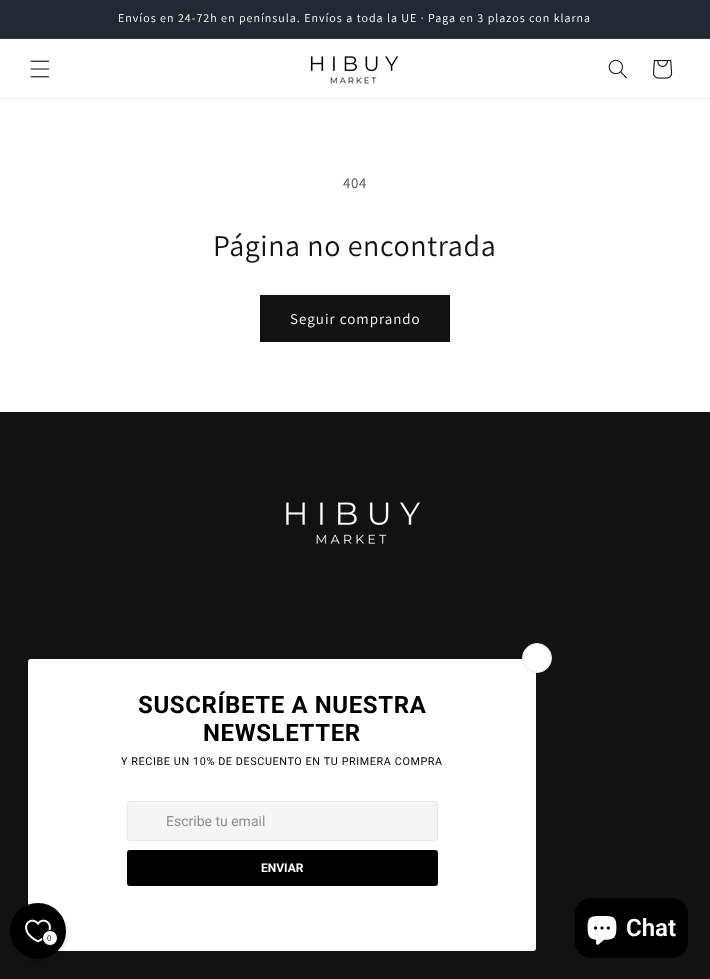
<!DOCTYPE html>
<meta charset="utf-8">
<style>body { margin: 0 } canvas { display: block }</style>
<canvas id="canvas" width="710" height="979"></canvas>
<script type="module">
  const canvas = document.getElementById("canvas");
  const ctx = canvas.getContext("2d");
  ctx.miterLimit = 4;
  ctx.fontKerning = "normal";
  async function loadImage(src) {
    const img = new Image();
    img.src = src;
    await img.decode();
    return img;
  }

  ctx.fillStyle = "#ffffff";
  ctx.fillRect(0, 0, 710, 979);
  ctx.fillStyle = "#242833";
  ctx.fillRect(0, 0, 710, 38);
  ctx.fillStyle = "#363943";
  ctx.fillRect(0, 38, 710, 1);
  ctx.letterSpacing = "1px";
  ctx.font = "12px Assistant";
  ctx.fillStyle = "#ffffff";
  ctx.fillText("Envíos en 24-72h en península. Envíos a toda la UE · Paga en 3 plazos con klarna", 118, 22);
  ctx.fillStyle = "#ececec";
  ctx.fillRect(0, 98, 710, 1);
  ctx.drawImage(await loadImage("img1.png"), 30, 60, 20, 18);
  ctx.drawImage(await loadImage("img2.png"), 310, 56, 88, 28);
  ctx.drawImage(await loadImage("img3.png"), 608, 59, 19, 20);
  ctx.drawImage(await loadImage("img4.png"), 653, 60, 20, 19);
  ctx.letterSpacing = "0.6px";
  ctx.font = "15px Assistant";
  ctx.fillStyle = "#4d4d4d";
  ctx.fillText("404", 343, 188);
  ctx.font = "30px Assistant";
  ctx.fillStyle = "#121212";
  ctx.fillText("Página no encontrada", 213, 256);
  ctx.fillRect(260, 295, 190, 47);
  ctx.letterSpacing = "1px";
  ctx.font = "15px Assistant";
  ctx.fillStyle = "#ffffff";
  ctx.fillText("Seguir comprando", 290, 324);
  ctx.fillStyle = "#121212";
  ctx.fillRect(0, 412, 710, 567);
  ctx.drawImage(await loadImage("img5.png"), 286, 502, 134, 42);
  ctx.fillStyle = "#ffffff";
  ctx.beginPath();
  ctx.roundRect(28, 659, 508, 292, 3);
  ctx.fill();
  ctx.beginPath();
  ctx.arc(537, 658, 14.5, 0, Math.PI * 2);
  ctx.fill();
  ctx.strokeStyle = "#e2e8f0";
  ctx.stroke();
  ctx.letterSpacing = "0.6px";
  ctx.font = "bold 24px Roboto";
  ctx.fillStyle = "#000000";
  ctx.fillText("SUSCRÍBETE A NUESTRA", 138, 713);
  ctx.fillText("NEWSLETTER", 203, 741);
  ctx.font = "10.8px Roboto";
  ctx.fillText("Y RECIBE UN 10% DE DESCUENTO EN TU PRIMERA COMPRA", 121, 765);
  ctx.fillStyle = "#f5f5f5";
  ctx.beginPath();
  ctx.roundRect(127.5, 801.5, 310, 39, 2.5);
  ctx.fill();
  ctx.stroke();
  ctx.letterSpacing = "0px";
  ctx.font = "14px Roboto";
  ctx.fillStyle = "#8e8e8e";
  ctx.fillText("Escribe tu email", 166, 826);
  ctx.fillStyle = "#000000";
  ctx.beginPath();
  ctx.roundRect(127, 850, 311, 36, 3);
  ctx.fill();
  ctx.font = "bold 12px Roboto";
  ctx.fillStyle = "#ffffff";
  ctx.fillText("ENVIAR", 261, 872);
  ctx.fillStyle = "#000000";
  ctx.beginPath();
  ctx.roundRect(575, 898, 113, 60, 16);
  ctx.fill();
  ctx.drawImage(await loadImage("img6.png"), 587, 916, 30, 29);
  ctx.font = "600 24px Roboto";
  ctx.fillStyle = "#ffffff";
  ctx.fillText("Chat", 626, 936);
  ctx.fillStyle = "rgba(0, 0, 0, 0.15)";
  ctx.filter = "blur(2px)";
  ctx.beginPath();
  ctx.roundRect(10, 905, 56, 56, 28);
  ctx.fill();
  ctx.filter = "none";
  ctx.fillStyle = "#000000";
  ctx.beginPath();
  ctx.arc(38, 931, 27, 0, Math.PI * 2);
  ctx.fill();
  ctx.strokeStyle = "#000000";
  ctx.lineWidth = 2;
  ctx.stroke();
  ctx.drawImage(await loadImage("img7.png"), 25, 919, 26, 24);
  ctx.fillStyle = "#ffffff";
  ctx.beginPath();
  ctx.arc(50, 938, 7.5, 0, Math.PI * 2);
  ctx.fill();
  ctx.lineWidth = 1;
  ctx.stroke();
  ctx.letterSpacing = "0.6px";
  ctx.font = "9px Assistant";
  ctx.fillStyle = "#000000";
  ctx.fillText("0", 47, 941);
</script>
